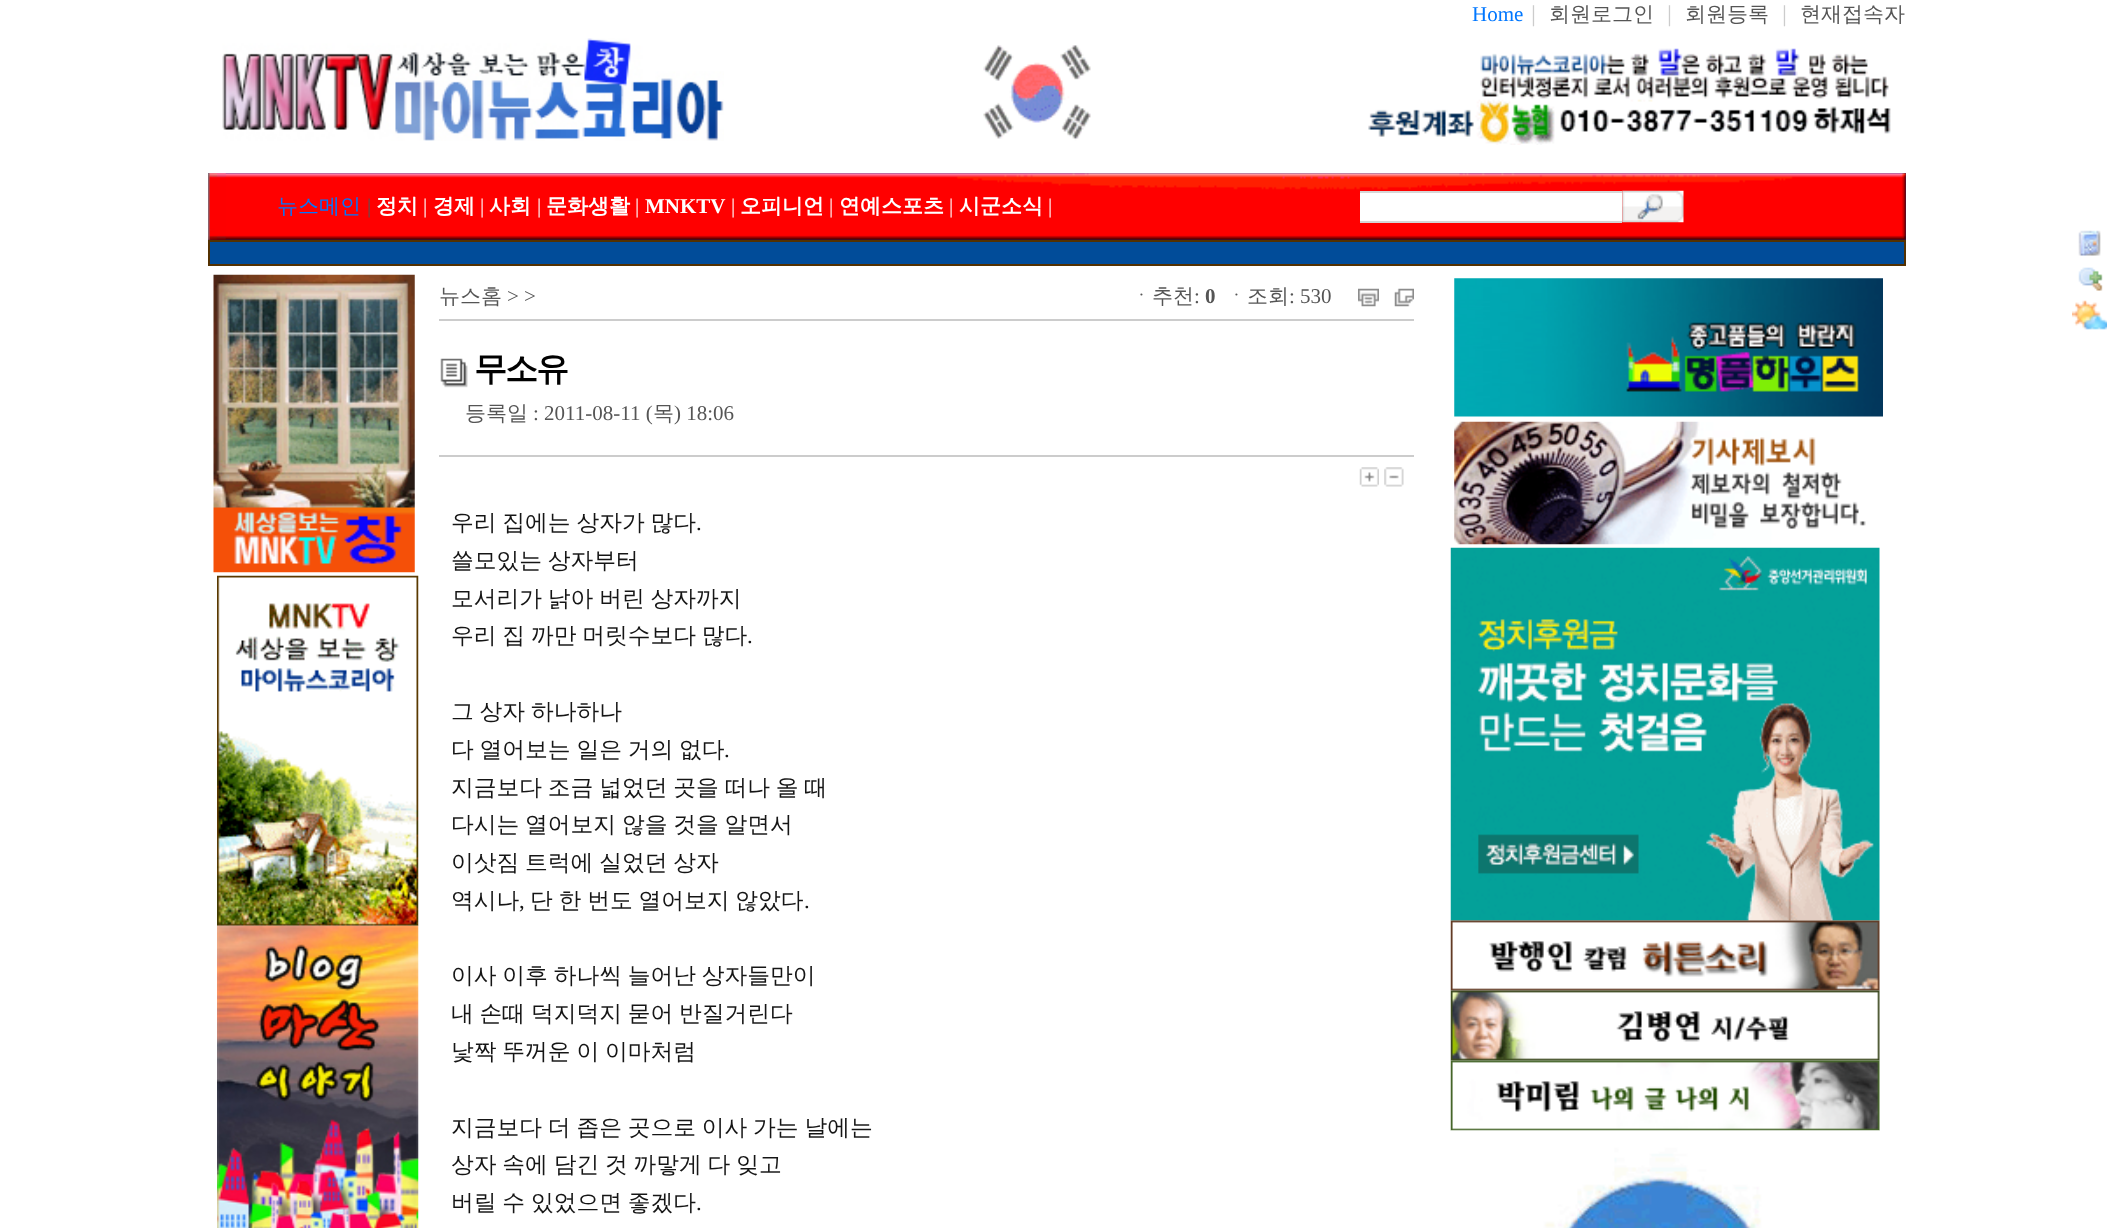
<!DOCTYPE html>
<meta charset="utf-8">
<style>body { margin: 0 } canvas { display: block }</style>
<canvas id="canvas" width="2111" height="1228"></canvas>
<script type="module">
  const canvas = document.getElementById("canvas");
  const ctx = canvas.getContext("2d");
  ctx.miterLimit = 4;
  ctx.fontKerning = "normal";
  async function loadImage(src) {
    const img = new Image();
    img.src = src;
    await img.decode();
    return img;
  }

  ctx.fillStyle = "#ffffff";
  ctx.fillRect(0, 0, 2111, 1228);
  ctx.font = "21px Liberation Serif";
  ctx.fillStyle = "#0077ff";
  ctx.fillText("Home", 1472, 21);
  ctx.font = "500 21px WenQuanYi Zen Hei";
  ctx.fillStyle = "#cccccc";
  ctx.fillText("｜", 1523, 21);
  ctx.fillStyle = "#555555";
  ctx.fillText("회원로그인", 1549, 21);
  ctx.fillStyle = "#cccccc";
  ctx.fillText("｜", 1659, 21);
  ctx.fillStyle = "#555555";
  ctx.fillText("회원등록", 1685, 21);
  ctx.fillStyle = "#cccccc";
  ctx.fillText("｜", 1774, 21);
  ctx.fillStyle = "#555555";
  ctx.fillText("현재접속자", 1800, 21);
  ctx.drawImage(await loadImage("img1.png"), 222, 38, 502, 103);
  ctx.drawImage(await loadImage("img2.png"), 983, 45, 908, 100);
  ctx.fillStyle = "#042f85";
  ctx.fillRect(208, 173, 1698, 67);
  ctx.drawImage(await loadImage("img3.png"), 208, 173, 1698, 67);
  ctx.drawImage(await loadImage("img4.png"), 208, 173, 18, 67);
  ctx.fillStyle = "#0077ff";
  ctx.fillText("뉴스메인", 277, 213);
  ctx.font = "21px Liberation Serif";
  ctx.fillStyle = "#555555";
  ctx.fillText("|", 367, 213);
  ctx.font = "bold 21px WenQuanYi Zen Hei";
  ctx.fillStyle = "#ffffff";
  ctx.fillText("정치", 376, 213);
  ctx.font = "21px Liberation Serif";
  ctx.fillText("|", 423, 213);
  ctx.font = "bold 21px WenQuanYi Zen Hei";
  ctx.fillText("경제", 433, 213);
  ctx.font = "21px Liberation Serif";
  ctx.fillText("|", 480, 213);
  ctx.font = "bold 21px WenQuanYi Zen Hei";
  ctx.fillText("사회", 489, 213);
  ctx.font = "21px Liberation Serif";
  ctx.fillText("|", 537, 213);
  ctx.font = "bold 21px WenQuanYi Zen Hei";
  ctx.fillText("문화생활", 546, 213);
  ctx.font = "21px Liberation Serif";
  ctx.fillText("|", 635, 213);
  ctx.font = "bold 21px Liberation Serif";
  ctx.fillText("MNKTV", 645, 213);
  ctx.font = "21px Liberation Serif";
  ctx.fillText("|", 731, 213);
  ctx.font = "bold 21px WenQuanYi Zen Hei";
  ctx.fillText("오피니언", 740, 213);
  ctx.font = "21px Liberation Serif";
  ctx.fillText("|", 829, 213);
  ctx.font = "bold 21px WenQuanYi Zen Hei";
  ctx.fillText("연예스포츠", 839, 213);
  ctx.font = "21px Liberation Serif";
  ctx.fillText("|", 949, 213);
  ctx.font = "bold 21px WenQuanYi Zen Hei";
  ctx.fillText("시군소식", 959, 213);
  ctx.font = "21px Liberation Serif";
  ctx.fillText("|", 1048, 213);
  ctx.fillRect(1360, 193, 262, 28);
  ctx.fillStyle = "#d6d6d6";
  ctx.fillRect(1360, 191, 262, 2);
  ctx.fillRect(1360, 221, 262, 2);
  ctx.drawImage(await loadImage("img5.png"), 1622, 190, 62, 33);
  ctx.fillStyle = "#533101";
  ctx.fillRect(208, 240, 1698, 26);
  ctx.fillStyle = "#014c99";
  ctx.fillRect(210, 242, 1694, 22);
  ctx.drawImage(await loadImage("img6.png"), 213, 274, 202, 299);
  ctx.drawImage(await loadImage("img7.png"), 217, 575, 202, 351);
  ctx.drawImage(await loadImage("img8.png"), 217, 925, 202, 303);
  ctx.font = "500 21px WenQuanYi Zen Hei";
  ctx.fillStyle = "#555555";
  ctx.fillText("뉴스홈", 439, 303);
  ctx.font = "21px Liberation Serif";
  ctx.fillText("> >", 507, 303);
  ctx.font = "500 21px WenQuanYi Zen Hei";
  ctx.fillText("ㆍ추천", 1131, 303);
  ctx.font = "21px Liberation Serif";
  ctx.fillText(":", 1194, 303);
  ctx.font = "bold 21px Liberation Serif";
  ctx.fillText("0", 1205, 303);
  ctx.font = "500 21px WenQuanYi Zen Hei";
  ctx.fillText("ㆍ조회", 1226, 303);
  ctx.font = "21px Liberation Serif";
  ctx.fillText(": 530", 1289, 303);
  ctx.drawImage(await loadImage("img9.png"), 1358, 288, 21, 19);
  ctx.drawImage(await loadImage("img10.png"), 1394, 288, 20, 19);
  ctx.fillStyle = "#cccccc";
  ctx.fillRect(439, 319, 975, 2);
  ctx.drawImage(await loadImage("img11.png"), 440, 358, 28, 30);
  ctx.letterSpacing = "-2px";
  ctx.font = "bold 33px WenQuanYi Zen Hei";
  ctx.fillStyle = "#000000";
  ctx.fillText("무소유", 474, 380);
  ctx.letterSpacing = "0px";
  ctx.font = "500 21px WenQuanYi Zen Hei";
  ctx.fillStyle = "#555555";
  ctx.fillText("등록일", 465, 420);
  ctx.font = "21px Liberation Serif";
  ctx.fillText(": 2011-08-11 (", 533, 420);
  ctx.font = "500 21px WenQuanYi Zen Hei";
  ctx.fillText("목", 653, 420);
  ctx.font = "21px Liberation Serif";
  ctx.fillText(") 18:06", 674, 420);
  ctx.fillStyle = "#cccccc";
  ctx.fillRect(439, 455, 975, 2);
  ctx.drawImage(await loadImage("img12.png"), 1359, 467, 20, 20);
  ctx.drawImage(await loadImage("img13.png"), 1384, 467, 20, 20);
  ctx.wordSpacing = "-1px";
  ctx.font = "500 22.75px WenQuanYi Zen Hei";
  ctx.fillStyle = "#151515";
  ctx.fillText("우리 집에는 상자가 많다", 451, 530);
  ctx.wordSpacing = "0px";
  ctx.font = "22.75px Liberation Serif";
  ctx.fillText(".", 696, 530);
  ctx.wordSpacing = "-1px";
  ctx.font = "500 22.75px WenQuanYi Zen Hei";
  ctx.fillText("쓸모있는 상자부터", 451, 568);
  ctx.fillText("모서리가 낡아 버린 상자까지", 451, 606);
  ctx.fillText("우리 집 까만 머릿수보다 많다", 451, 643);
  ctx.wordSpacing = "0px";
  ctx.font = "22.75px Liberation Serif";
  ctx.fillText(".", 747, 643);
  ctx.wordSpacing = "-1px";
  ctx.font = "500 22.75px WenQuanYi Zen Hei";
  ctx.fillText("그 상자 하나하나", 451, 719);
  ctx.fillText("다 열어보는 일은 거의 없다", 451, 757);
  ctx.wordSpacing = "0px";
  ctx.font = "22.75px Liberation Serif";
  ctx.fillText(".", 724, 757);
  ctx.wordSpacing = "-1px";
  ctx.font = "500 22.75px WenQuanYi Zen Hei";
  ctx.fillText("지금보다 조금 넓었던 곳을 떠나 올 때", 451, 795);
  ctx.fillText("다시는 열어보지 않을 것을 알면서", 451, 832);
  ctx.fillText("이삿짐 트럭에 실었던 상자", 451, 870);
  ctx.wordSpacing = "0px";
  ctx.fillText("역시나", 451, 908);
  ctx.font = "22.75px Liberation Serif";
  ctx.fillText(",", 519, 908);
  ctx.wordSpacing = "-1px";
  ctx.font = "500 22.75px WenQuanYi Zen Hei";
  ctx.fillText("단 한 번도 열어보지 않았다", 530, 908);
  ctx.wordSpacing = "0px";
  ctx.font = "22.75px Liberation Serif";
  ctx.fillText(".", 804, 908);
  ctx.wordSpacing = "-1px";
  ctx.font = "500 22.75px WenQuanYi Zen Hei";
  ctx.fillText("이사 이후 하나씩 늘어난 상자들만이", 451, 983);
  ctx.fillText("내 손때 덕지덕지 묻어 반질거린다", 451, 1021);
  ctx.fillText("낯짝 뚜꺼운 이 이마처럼", 451, 1059);
  ctx.fillText("지금보다 더 좁은 곳으로 이사 가는 날에는", 451, 1135);
  ctx.fillText("상자 속에 담긴 것 까맣게 다 잊고", 451, 1172);
  ctx.fillText("버릴 수 있었으면 좋겠다", 451, 1210);
  ctx.wordSpacing = "0px";
  ctx.font = "22.75px Liberation Serif";
  ctx.fillText(".", 696, 1210);
  ctx.drawImage(await loadImage("img14.png"), 1454, 278, 429, 139);
  ctx.drawImage(await loadImage("img15.png"), 1454, 421, 412, 124);
  ctx.drawImage(await loadImage("img16.png"), 1450, 547, 430, 374);
  ctx.drawImage(await loadImage("img17.png"), 1450, 920, 430, 71);
  ctx.drawImage(await loadImage("img18.png"), 1450, 990, 430, 71);
  ctx.drawImage(await loadImage("img19.png"), 1450, 1060, 430, 71);
  ctx.drawImage(await loadImage("img20.png"), 1451, 1130, 429, 98);
  ctx.drawImage(await loadImage("img21.png"), 2078, 230, 23, 26);
  ctx.drawImage(await loadImage("img22.png"), 2078, 267, 25, 24);
  ctx.drawImage(await loadImage("img23.png"), 2072, 300, 35, 30);
</script>
